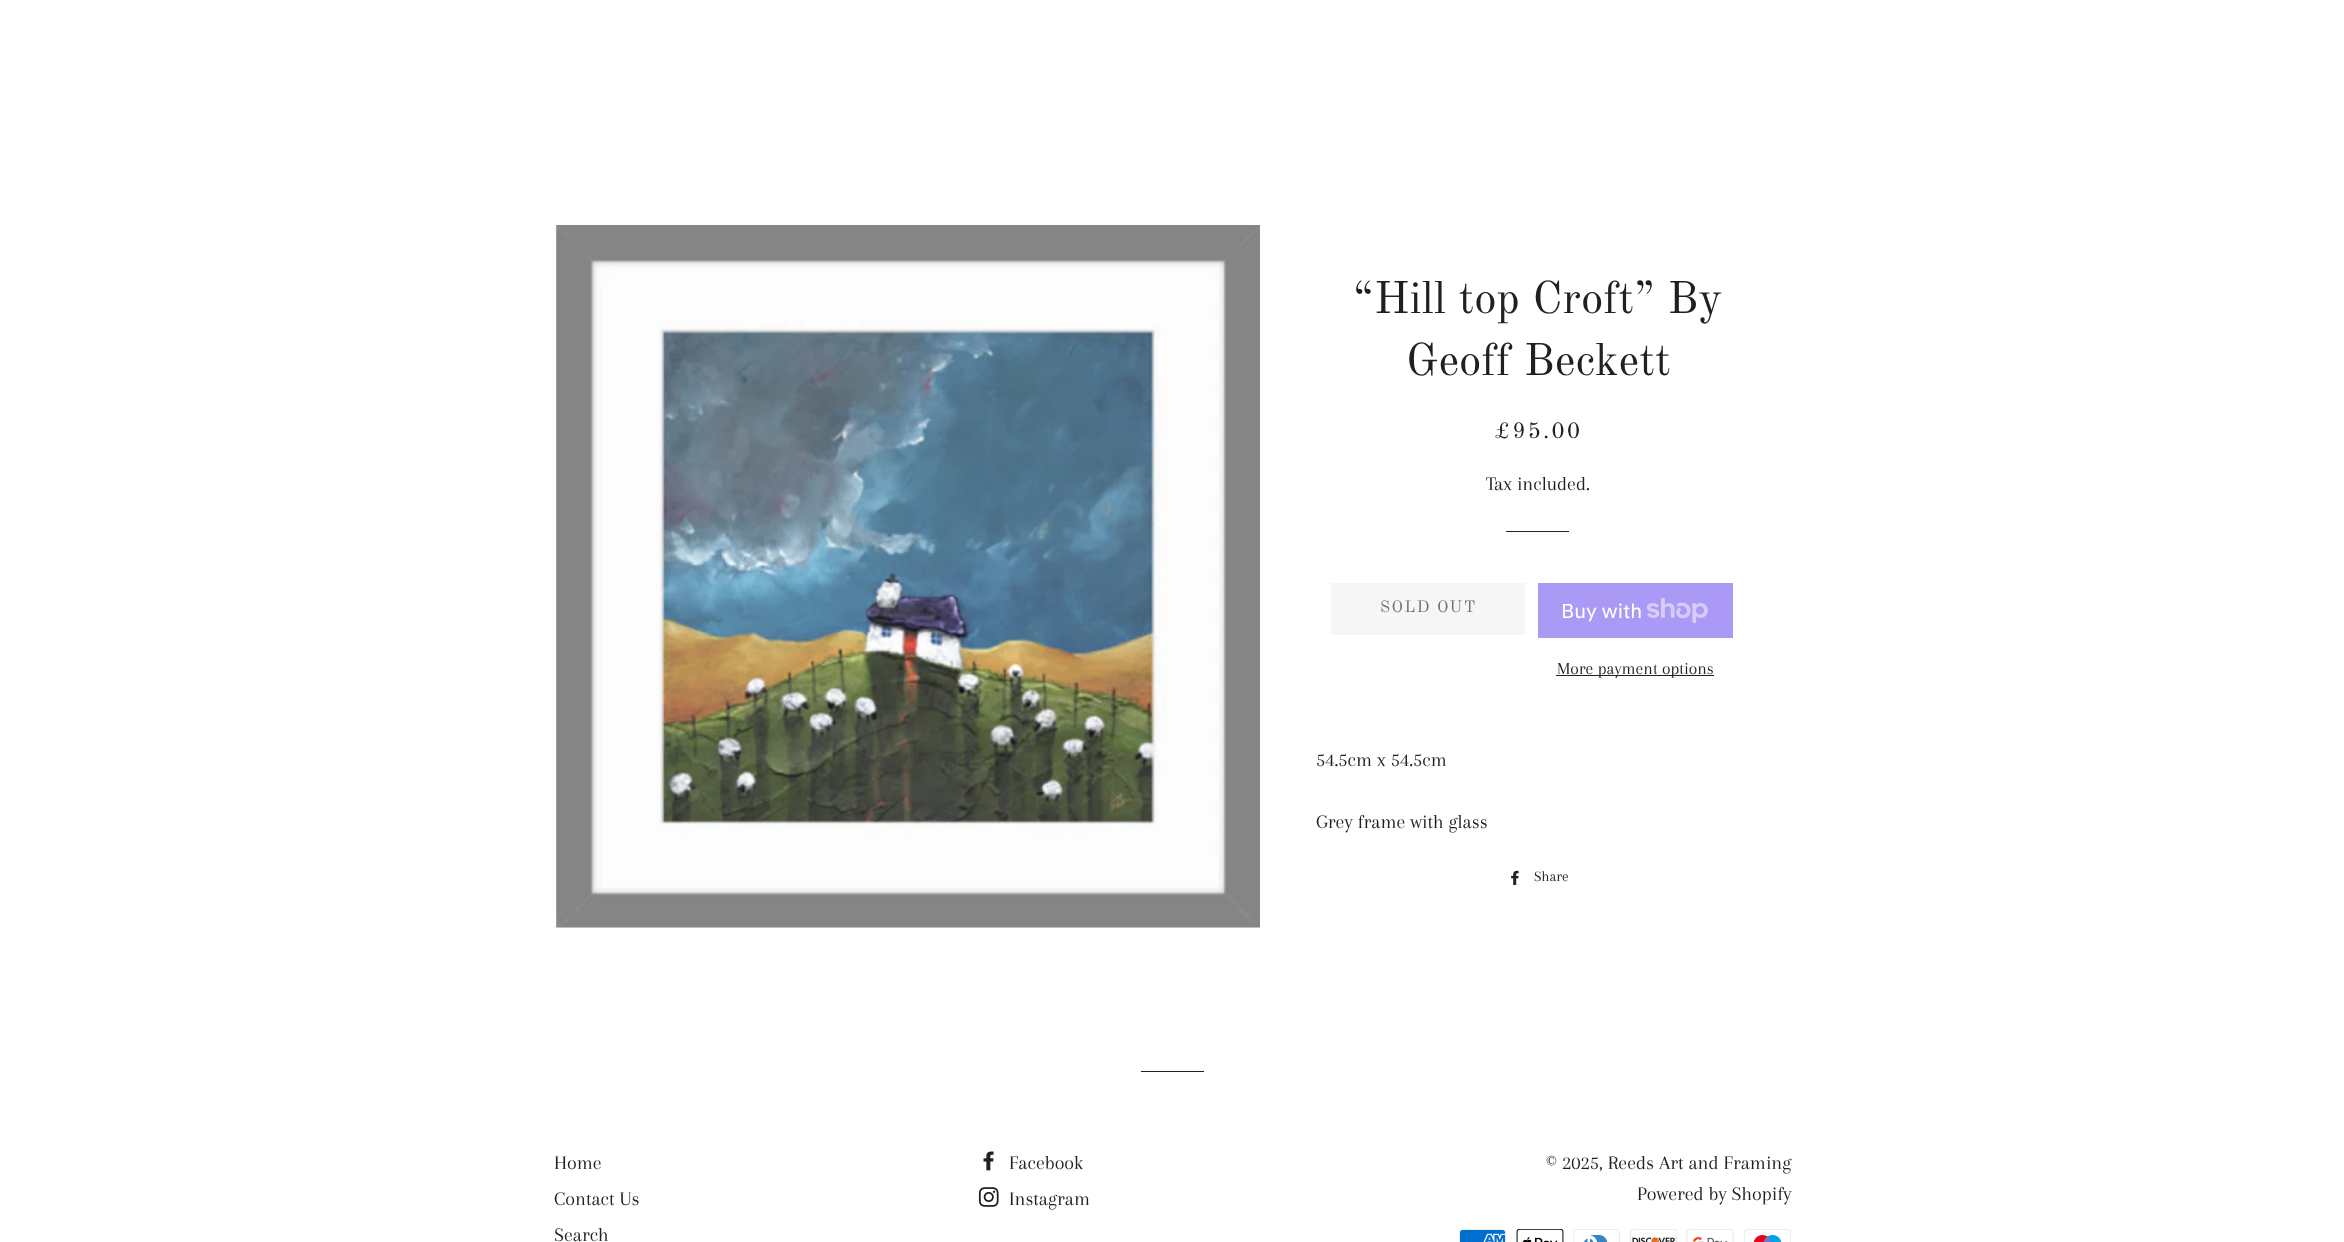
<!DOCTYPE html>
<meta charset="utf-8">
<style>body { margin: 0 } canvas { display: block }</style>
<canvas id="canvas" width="2344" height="1242"></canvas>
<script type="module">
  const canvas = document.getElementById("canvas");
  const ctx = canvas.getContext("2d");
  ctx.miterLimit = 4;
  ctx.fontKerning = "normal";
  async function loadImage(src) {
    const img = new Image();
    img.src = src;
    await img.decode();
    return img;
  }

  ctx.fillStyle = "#ffffff";
  ctx.fillRect(0, 0, 2344, 1242);
  ctx.fillStyle = "#f6f6f6";
  ctx.fillRect(554, 927, 706, 1);
  ctx.drawImage(await loadImage("img1.png"), 554, 225, 706, 703);
  ctx.font = "45px Old Standard TT";
  ctx.fillStyle = "#1f2021";
  ctx.fillText("“Hill top Croft” By", 1353, 313);
  ctx.fillText("Geoff Beckett", 1406, 375);
  ctx.letterSpacing = "2.25px";
  ctx.font = "22.5px Old Standard TT";
  ctx.fillText("£95.00", 1494, 438);
  ctx.letterSpacing = "0px";
  ctx.font = "20px Arapey";
  ctx.fillText("Tax included.", 1486, 490);
  ctx.fillRect(1506, 531, 63, 1);
  ctx.fillStyle = "#f6f6f6";
  ctx.fillRect(1331, 583, 194, 52);
  ctx.letterSpacing = "1.5px";
  ctx.font = "16.25px Old Standard TT";
  ctx.fillStyle = "#717171";
  ctx.fillText("SOLD OUT", 1380, 612);
  ctx.fillStyle = "#aa99f5";
  ctx.fillRect(1538, 583, 195, 55);
  ctx.letterSpacing = "0px";
  ctx.font = "20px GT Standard";
  ctx.fillStyle = "#ffffff";
  ctx.fillText("Buy with", 1561, 618);
  ctx.drawImage(await loadImage("img2.png"), 1647, 598, 61, 25);
  ctx.fillStyle = "#1f2021";
  ctx.fillRect(1556, 675, 158, 1);
  ctx.font = "17.5px Arapey";
  ctx.fillText("More payment options", 1557, 674);
  ctx.font = "20px Arapey";
  ctx.fillText("54.5cm x 54.5cm", 1316, 766);
  ctx.fillText("Grey frame with glass", 1316, 828);
  ctx.drawImage(await loadImage("img3.png"), 1511, 870, 8, 15);
  ctx.font = "15px Arapey";
  ctx.fillText("Share", 1534, 881);
  ctx.fillRect(1141, 1071, 63, 1);
  ctx.font = "20px Arapey";
  ctx.fillText("Home", 554, 1169);
  ctx.fillText("Contact Us", 554, 1205);
  ctx.fillText("Search", 554, 1241);
  ctx.drawImage(await loadImage("img4.png"), 983, 1151, 11, 20);
  ctx.fillText("Facebook", 1009, 1169);
  ctx.drawImage(await loadImage("img5.png"), 978, 1187, 21, 20);
  ctx.fillText("Instagram", 1009, 1205);
  ctx.fillText("© 2025, Reeds Art and Framing", 1546, 1169);
  ctx.fillText("Powered by Shopify", 1637, 1200);
  ctx.drawImage(await loadImage("img6.png"), 1459, 1229, 47, 13);
  ctx.drawImage(await loadImage("img7.png"), 1516, 1229, 48, 13);
  ctx.drawImage(await loadImage("img8.png"), 1573, 1229, 47, 13);
  ctx.drawImage(await loadImage("img9.png"), 1630, 1229, 48, 13);
  ctx.drawImage(await loadImage("img10.png"), 1686, 1229, 48, 13);
  ctx.drawImage(await loadImage("img11.png"), 1744, 1229, 47, 13);
</script>
